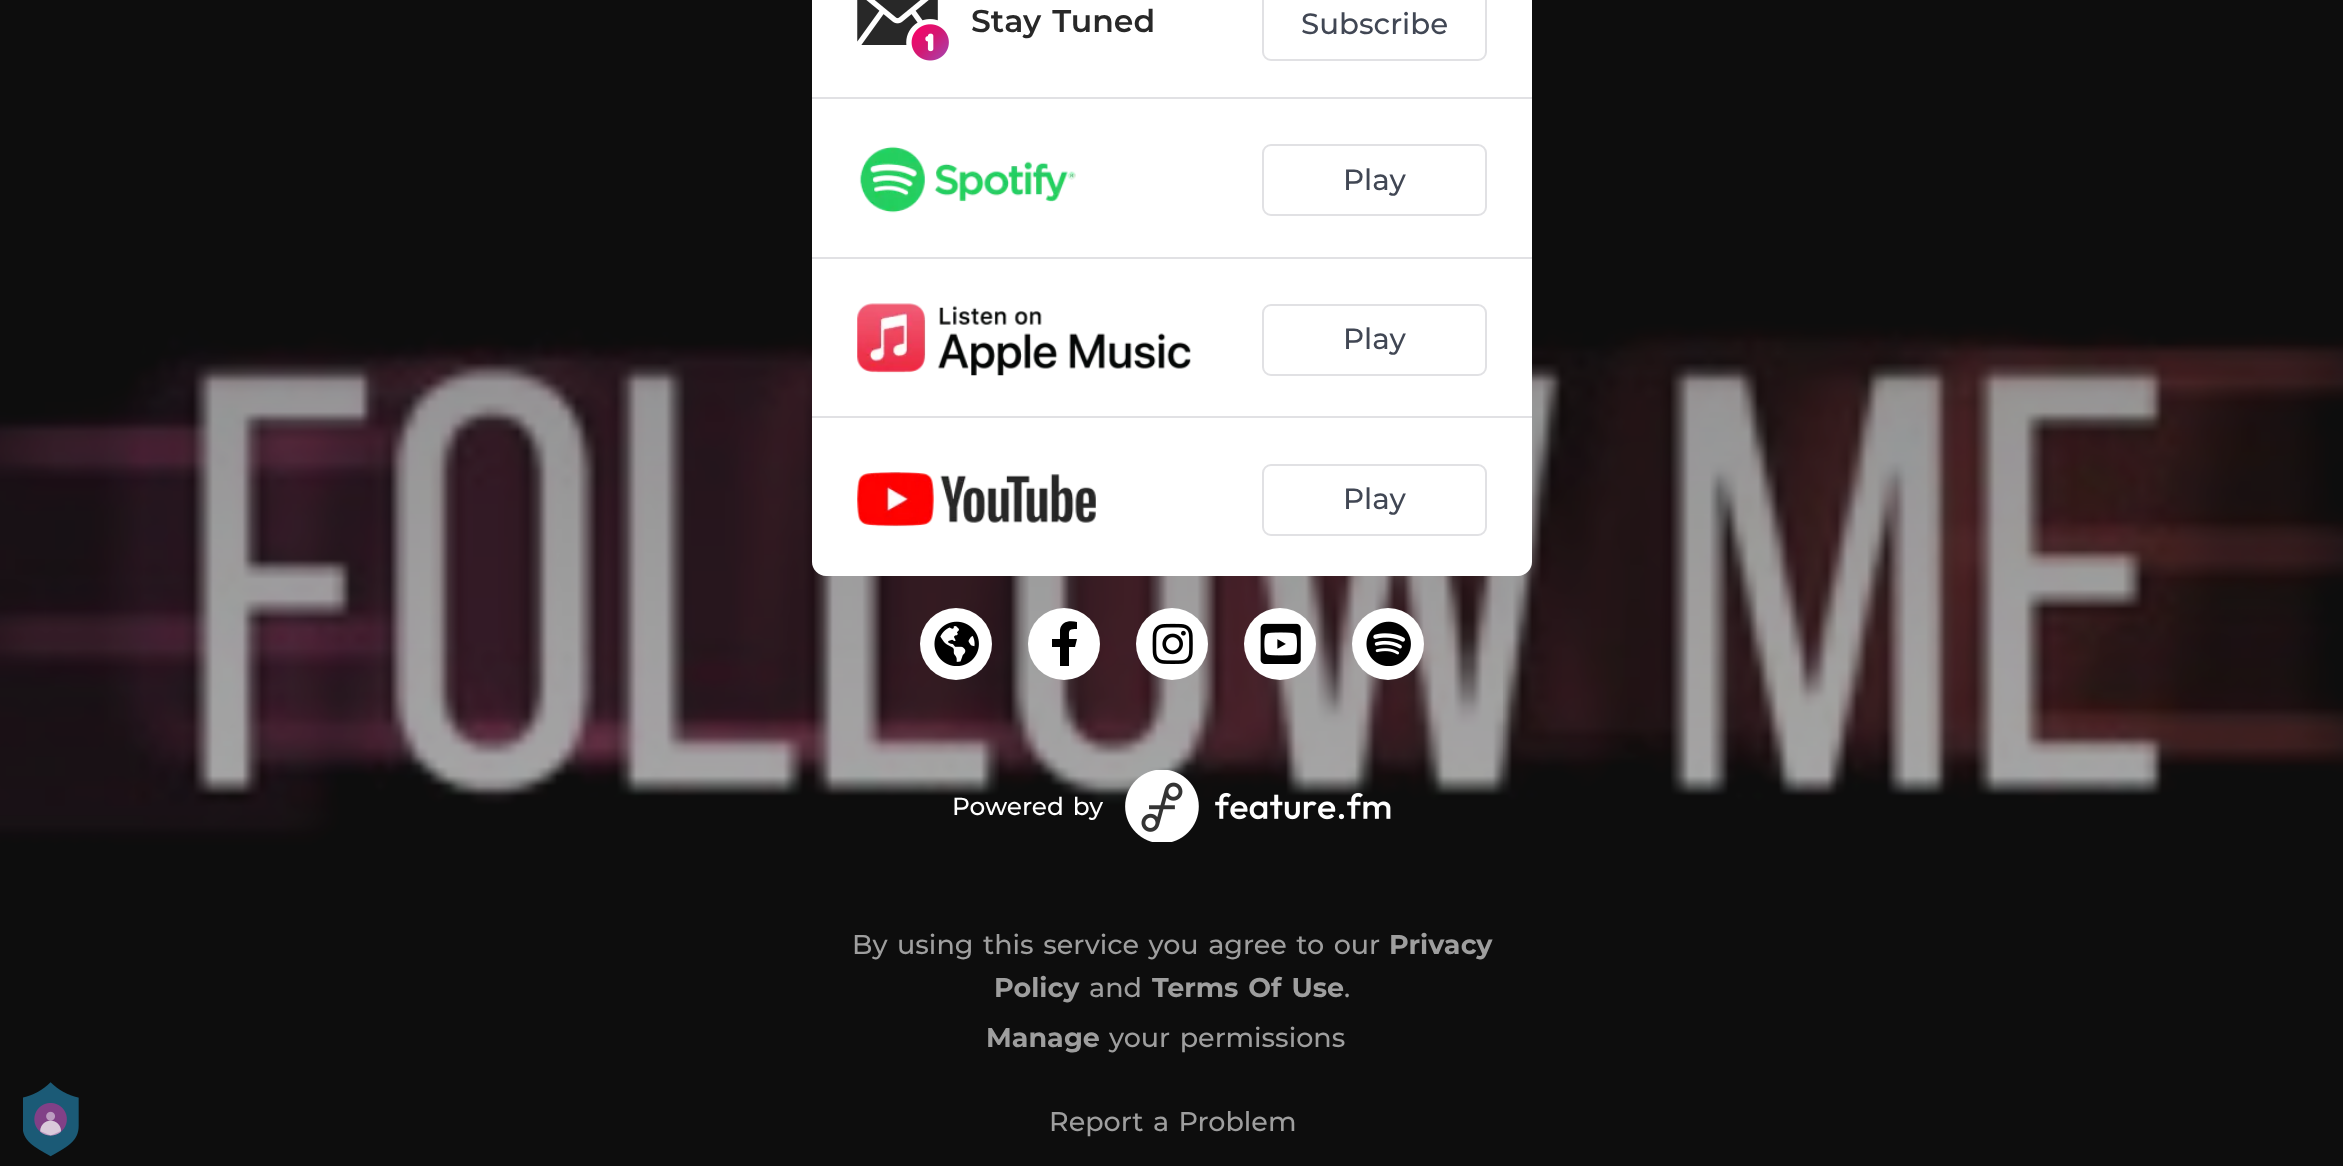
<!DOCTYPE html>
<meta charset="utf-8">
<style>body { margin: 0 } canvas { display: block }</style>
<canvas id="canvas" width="2343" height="1166"></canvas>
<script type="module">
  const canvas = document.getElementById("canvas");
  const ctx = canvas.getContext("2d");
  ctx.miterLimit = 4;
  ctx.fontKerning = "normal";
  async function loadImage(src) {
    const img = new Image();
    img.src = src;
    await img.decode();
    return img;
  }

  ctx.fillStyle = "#ffffff";
  ctx.fillRect(0, 0, 2343, 1166);
  ctx.drawImage(await loadImage("img2.png"), 0, 0, 2343, 1166);
  ctx.drawImage(await loadImage("img1.png"), 23, 1082, 56, 75);
  ctx.beginPath();
  ctx.moveTo(812, -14);
  ctx.lineTo(1532, -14);
  ctx.lineTo(1532, 562);
  ctx.bezierCurveTo(1532, 569.5, 1525.5, 576, 1518, 576);
  ctx.lineTo(826, 576);
  ctx.bezierCurveTo(818.5, 576, 812, 569.5, 812, 562);
  ctx.closePath();
  ctx.fill();
  ctx.fillStyle = "#e1e1e4";
  ctx.fillRect(812, 97, 720, 2);
  ctx.drawImage(await loadImage("img3.png"), 857, 0, 92, 61);
  ctx.wordSpacing = "2.25px";
  ctx.font = "600 31.5px Montserrat";
  ctx.fillStyle = "#282828";
  ctx.fillText("Stay Tuned", 971, 32);
  ctx.beginPath();
  ctx.roundRect(1263, -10, 223, 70, 8);
  ctx.strokeStyle = "#e1e1e4";
  ctx.lineWidth = 2;
  ctx.stroke();
  ctx.wordSpacing = "0px";
  ctx.font = "500 29.25px Montserrat";
  ctx.fillStyle = "#414754";
  ctx.fillText("Subscribe", 1301, 34);
  ctx.fillStyle = "#e1e1e4";
  ctx.fillRect(812, 257, 720, 2);
  ctx.drawImage(await loadImage("img4.png"), 859, 146, 217, 67);
  ctx.beginPath();
  ctx.roundRect(1263, 145, 223, 70, 8);
  ctx.stroke();
  ctx.fillStyle = "#414754";
  ctx.fillText("Play", 1343, 190);
  ctx.fillStyle = "#e1e1e4";
  ctx.fillRect(812, 416, 720, 2);
  ctx.drawImage(await loadImage("img5.png"), 857, 303, 334, 73);
  ctx.beginPath();
  ctx.roundRect(1263, 305, 223, 70, 8);
  ctx.stroke();
  ctx.fillStyle = "#414754";
  ctx.fillText("Play", 1343, 349);
  ctx.drawImage(await loadImage("img6.png"), 857, 472, 239, 55);
  ctx.beginPath();
  ctx.roundRect(1263, 465, 223, 70, 8);
  ctx.stroke();
  ctx.fillText("Play", 1343, 509);
  ctx.fillStyle = "#ffffff";
  ctx.beginPath();
  ctx.arc(956, 644, 36, 0, Math.PI * 2);
  ctx.fill();
  ctx.drawImage(await loadImage("img7.png"), 934, 621, 45, 45);
  ctx.beginPath();
  ctx.arc(1064, 644, 36, 0, Math.PI * 2);
  ctx.fill();
  ctx.save();
  ctx.beginPath();
  ctx.rect(1042, 621, 45, 45);
  ctx.clip();
  ctx.fillStyle = "#000000";
  ctx.beginPath();
  ctx.moveTo(1075, 647);
  ctx.lineTo(1077, 639);
  ctx.lineTo(1069, 639);
  ctx.bezierCurveTo(1069, 630, 1068, 629, 1077, 629);
  ctx.lineTo(1077, 622);
  ctx.bezierCurveTo(1070, 620, 1061, 621, 1060, 630);
  ctx.lineTo(1060, 639);
  ctx.lineTo(1052, 639);
  ctx.lineTo(1052, 647);
  ctx.lineTo(1060, 647);
  ctx.lineTo(1060, 667);
  ctx.lineTo(1069, 667);
  ctx.lineTo(1069, 647);
  ctx.closePath();
  ctx.fill();
  ctx.restore();
  ctx.beginPath();
  ctx.arc(1172, 644, 36, 0, Math.PI * 2);
  ctx.fill();
  ctx.drawImage(await loadImage("img8.png"), 1152, 623, 41, 41);
  ctx.beginPath();
  ctx.arc(1280, 644, 36, 0, Math.PI * 2);
  ctx.fill();
  ctx.drawImage(await loadImage("img9.png"), 1260, 623, 41, 41);
  ctx.beginPath();
  ctx.arc(1388, 644, 36, 0, Math.PI * 2);
  ctx.fill();
  ctx.drawImage(await loadImage("img10.png"), 1366, 621, 45, 45);
  ctx.wordSpacing = "2.25px";
  ctx.font = "500 24.75px Montserrat";
  ctx.fillText("Powered by", 952, 815);
  ctx.drawImage(await loadImage("img11.png"), 1125, 770, 266, 72);
  ctx.font = "500 27px Montserrat";
  ctx.fillStyle = "#9e9e9e";
  ctx.fillText("By using this service you agree to our", 852, 954);
  ctx.wordSpacing = "0px";
  ctx.font = "bold 27px Montserrat";
  ctx.fillText("Privacy", 1389, 954);
  ctx.fillText("Policy", 994, 997);
  ctx.font = "500 27px Montserrat";
  ctx.fillText("and", 1089, 997);
  ctx.wordSpacing = "2.25px";
  ctx.font = "bold 27px Montserrat";
  ctx.fillText("Terms Of Use", 1152, 997);
  ctx.wordSpacing = "0px";
  ctx.font = "500 27px Montserrat";
  ctx.fillText(".", 1344, 997);
  ctx.font = "bold 27px Montserrat";
  ctx.fillText("Manage", 986, 1047);
  ctx.wordSpacing = "2.25px";
  ctx.font = "500 27px Montserrat";
  ctx.fillText("your permissions", 1109, 1047);
  ctx.fillText("Report a Problem", 1049, 1131);
</script>
